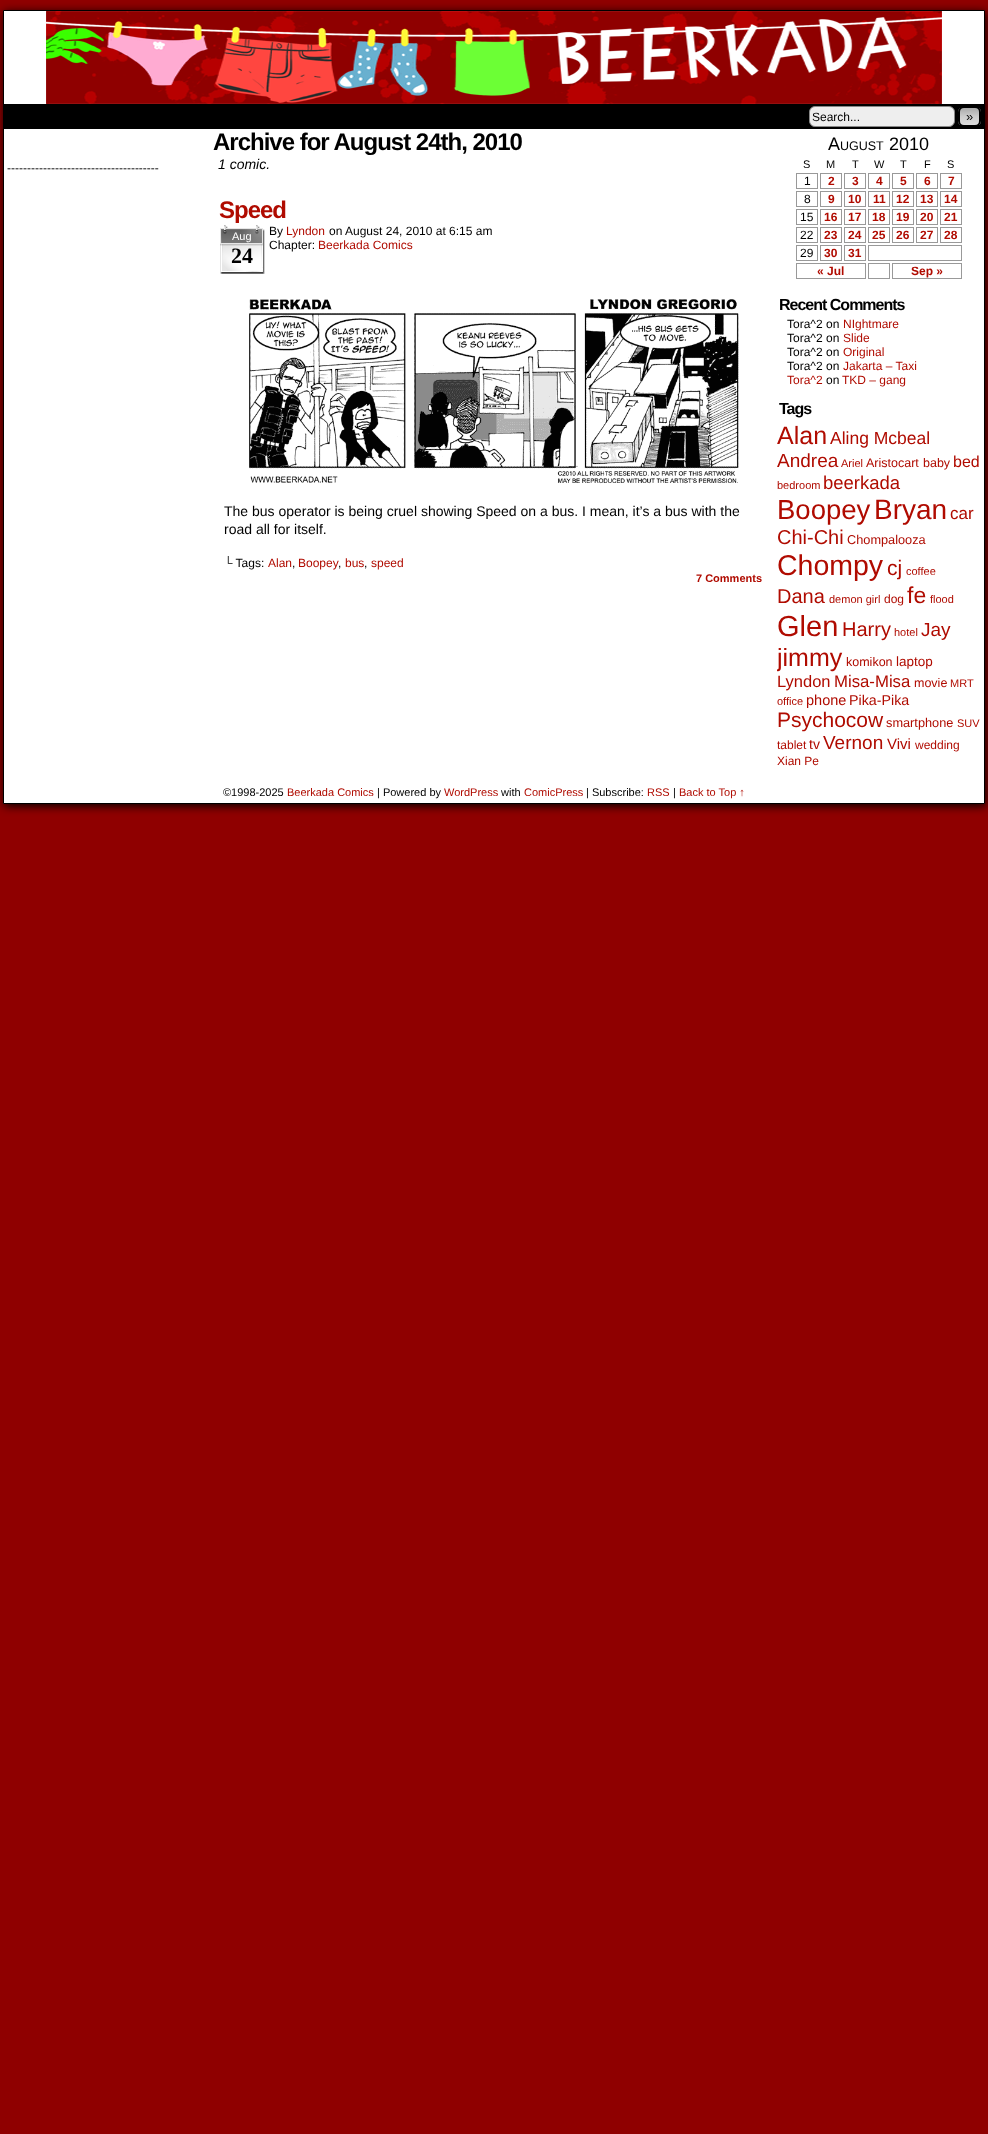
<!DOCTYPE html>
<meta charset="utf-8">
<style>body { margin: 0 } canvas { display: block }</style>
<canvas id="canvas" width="988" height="2134"></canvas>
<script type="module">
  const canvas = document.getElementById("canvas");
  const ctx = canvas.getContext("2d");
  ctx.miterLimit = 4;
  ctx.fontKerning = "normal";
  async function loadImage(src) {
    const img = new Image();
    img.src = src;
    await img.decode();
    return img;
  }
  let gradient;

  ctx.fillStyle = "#8f0000";
  ctx.fillRect(0, 0, 988, 2134);
  ctx.fillStyle = "#000000";
  ctx.filter = "blur(5px)";
  ctx.beginPath();
  ctx.rect(4, 12, 982, 794);
  ctx.fill();
  ctx.filter = "none";
  ctx.fillStyle = "#ffffff";
  ctx.beginPath();
  ctx.rect(3.5, 10.5, 981, 793);
  ctx.fill();
  ctx.strokeStyle = "#000000";
  ctx.stroke();
  ctx.drawImage(await loadImage("img1.png"), 46, 11, 896, 93);
  ctx.fillStyle = "#000000";
  ctx.fillRect(4, 104, 980, 25);
  ctx.fillStyle = "#eeeeee";
  ctx.beginPath();
  ctx.roundRect(809.5, 106.5, 145, 20, 5.5);
  ctx.fill();
  ctx.strokeStyle = "#888888";
  ctx.stroke();
  ctx.font = "12px Liberation Sans";
  ctx.fillStyle = "#000000";
  ctx.fillText("Search...", 812, 121);
  ctx.save();
  ctx.beginPath();
  ctx.roundRect(958, 106, 23, 21, 6);
  ctx.clip();
  gradient = ctx.createLinearGradient(970, 108, 970, 125);
  gradient.addColorStop(0, "#aaaaaa");
  gradient.addColorStop(0.5, "#cccccc");
  gradient.addColorStop(1, "#dddddd");
  ctx.fillStyle = gradient;
  ctx.fillRect(958, 108, 23, 17);
  ctx.restore();
  ctx.beginPath();
  ctx.roundRect(959, 107, 21, 19, 5);
  ctx.strokeStyle = "#000000";
  ctx.lineWidth = 2;
  ctx.stroke();
  ctx.font = "13px Liberation Sans";
  ctx.fillText("»", 966, 121);
  ctx.font = "12px Liberation Sans";
  ctx.fillText("--------------------------------------", 7, 172);
  ctx.letterSpacing = "-1px";
  ctx.font = "bold 24px Liberation Sans";
  ctx.fillText("Archive for August 24th, 2010", 213, 150);
  ctx.letterSpacing = "0px";
  ctx.font = "italic 14px Liberation Sans";
  ctx.fillText("1 comic.", 218, 169);
  ctx.letterSpacing = "-1px";
  ctx.font = "bold 24px Liberation Sans";
  ctx.fillStyle = "#b00b00";
  ctx.fillText("Speed", 219, 218);
  ctx.drawImage(await loadImage("img2.png"), 220, 225, 45, 49);
  ctx.letterSpacing = "0px";
  ctx.font = "11px Liberation Sans";
  ctx.fillStyle = "#ffffff";
  ctx.fillText("Aug", 232, 240);
  ctx.font = "bold 22px Liberation Serif";
  ctx.fillStyle = "#000000";
  ctx.fillText("24", 231, 263);
  ctx.font = "12px Liberation Sans";
  ctx.fillText("By", 269, 235);
  ctx.fillStyle = "#b00b00";
  ctx.fillText("Lyndon", 286, 235);
  ctx.fillStyle = "#000000";
  ctx.fillText("on August 24, 2010 at 6:15 am", 329, 235);
  ctx.fillText("Chapter:", 269, 249);
  ctx.fillStyle = "#b00b00";
  ctx.fillText("Beerkada Comics", 318, 249);
  ctx.drawImage(await loadImage("img3.png"), 249, 299, 490, 185);
  ctx.font = "14px Liberation Sans";
  ctx.fillStyle = "#000000";
  ctx.fillText("The bus operator is being cruel showing Speed on a bus. I mean, it’s a bus with the", 224, 516);
  ctx.fillText("road all for itself.", 224, 534);
  ctx.font = "12px Liberation Sans";
  ctx.fillText("└ Tags:", 224, 567);
  ctx.fillStyle = "#b00b00";
  ctx.fillText("Alan", 268, 567);
  ctx.fillStyle = "#000000";
  ctx.fillText(",", 292, 567);
  ctx.fillStyle = "#b00b00";
  ctx.fillText("Boopey", 298, 567);
  ctx.fillStyle = "#000000";
  ctx.fillText(",", 338, 567);
  ctx.fillStyle = "#b00b00";
  ctx.fillText("bus", 345, 567);
  ctx.fillStyle = "#000000";
  ctx.fillText(",", 364, 567);
  ctx.fillStyle = "#b00b00";
  ctx.fillText("speed", 371, 567);
  ctx.font = "bold 11px Liberation Sans";
  ctx.fillText("7 Comments", 696, 582);
  ctx.font = "18px Liberation Sans";
  ctx.fillStyle = "#000000";
  ctx.fillText("A", 828, 150);
  ctx.font = "12.5px Liberation Sans";
  ctx.fillText("UGUST", 840, 150);
  ctx.font = "18px Liberation Sans";
  ctx.fillText("2010", 889, 150);
  ctx.font = "11px Liberation Sans";
  ctx.fillText("S", 803, 168);
  ctx.fillText("M", 826, 168);
  ctx.fillText("T", 852, 168);
  ctx.fillText("W", 874, 168);
  ctx.fillText("T", 900, 168);
  ctx.fillText("F", 924, 168);
  ctx.fillText("S", 947, 168);
  ctx.strokeStyle = "#999999";
  ctx.lineWidth = 1;
  ctx.strokeRect(796.5, 173.5, 21, 15);
  ctx.font = "12px Liberation Sans";
  ctx.fillText("1", 804, 185);
  ctx.strokeRect(820.5, 173.5, 21, 15);
  ctx.font = "bold 12px Liberation Sans";
  ctx.fillStyle = "#b00b00";
  ctx.fillText("2", 828, 185);
  ctx.strokeRect(844.5, 173.5, 21, 15);
  ctx.fillText("3", 852, 185);
  ctx.strokeRect(868.5, 173.5, 21, 15);
  ctx.fillText("4", 876, 185);
  ctx.strokeRect(892.5, 173.5, 21, 15);
  ctx.fillText("5", 900, 185);
  ctx.strokeRect(916.5, 173.5, 21, 15);
  ctx.fillText("6", 924, 185);
  ctx.strokeRect(940.5, 173.5, 21, 15);
  ctx.fillText("7", 948, 185);
  ctx.strokeRect(796.5, 191.5, 21, 15);
  ctx.font = "12px Liberation Sans";
  ctx.fillStyle = "#000000";
  ctx.fillText("8", 804, 203);
  ctx.strokeRect(820.5, 191.5, 21, 15);
  ctx.font = "bold 12px Liberation Sans";
  ctx.fillStyle = "#b00b00";
  ctx.fillText("9", 828, 203);
  ctx.strokeRect(844.5, 191.5, 21, 15);
  ctx.fillText("10", 848, 203);
  ctx.strokeRect(868.5, 191.5, 21, 15);
  ctx.fillText("11", 873, 203);
  ctx.strokeRect(892.5, 191.5, 21, 15);
  ctx.fillText("12", 896, 203);
  ctx.strokeRect(916.5, 191.5, 21, 15);
  ctx.fillText("13", 920, 203);
  ctx.strokeRect(940.5, 191.5, 21, 15);
  ctx.fillText("14", 944, 203);
  ctx.strokeRect(796.5, 209.5, 21, 15);
  ctx.font = "12px Liberation Sans";
  ctx.fillStyle = "#000000";
  ctx.fillText("15", 800, 221);
  ctx.strokeRect(820.5, 209.5, 21, 15);
  ctx.font = "bold 12px Liberation Sans";
  ctx.fillStyle = "#b00b00";
  ctx.fillText("16", 824, 221);
  ctx.strokeRect(844.5, 209.5, 21, 15);
  ctx.fillText("17", 848, 221);
  ctx.strokeRect(868.5, 209.5, 21, 15);
  ctx.fillText("18", 872, 221);
  ctx.strokeRect(892.5, 209.5, 21, 15);
  ctx.fillText("19", 896, 221);
  ctx.strokeRect(916.5, 209.5, 21, 15);
  ctx.fillText("20", 920, 221);
  ctx.strokeRect(940.5, 209.5, 21, 15);
  ctx.fillText("21", 944, 221);
  ctx.strokeRect(796.5, 227.5, 21, 15);
  ctx.font = "12px Liberation Sans";
  ctx.fillStyle = "#000000";
  ctx.fillText("22", 800, 239);
  ctx.strokeRect(820.5, 227.5, 21, 15);
  ctx.font = "bold 12px Liberation Sans";
  ctx.fillStyle = "#b00b00";
  ctx.fillText("23", 824, 239);
  ctx.strokeRect(844.5, 227.5, 21, 15);
  ctx.fillText("24", 848, 239);
  ctx.strokeRect(868.5, 227.5, 21, 15);
  ctx.fillText("25", 872, 239);
  ctx.strokeRect(892.5, 227.5, 21, 15);
  ctx.fillText("26", 896, 239);
  ctx.strokeRect(916.5, 227.5, 21, 15);
  ctx.fillText("27", 920, 239);
  ctx.strokeRect(940.5, 227.5, 21, 15);
  ctx.fillText("28", 944, 239);
  ctx.strokeRect(796.5, 245.5, 21, 15);
  ctx.font = "12px Liberation Sans";
  ctx.fillStyle = "#000000";
  ctx.fillText("29", 800, 257);
  ctx.strokeRect(820.5, 245.5, 21, 15);
  ctx.font = "bold 12px Liberation Sans";
  ctx.fillStyle = "#b00b00";
  ctx.fillText("30", 824, 257);
  ctx.strokeRect(844.5, 245.5, 21, 15);
  ctx.fillText("31", 848, 257);
  ctx.strokeRect(868.5, 245.5, 93, 15);
  ctx.strokeRect(796.5, 263.5, 69, 15);
  ctx.fillText("« Jul", 817, 275);
  ctx.strokeRect(868.5, 263.5, 21, 15);
  ctx.strokeRect(892.5, 263.5, 69, 15);
  ctx.fillText("Sep »", 911, 275);
  ctx.letterSpacing = "-1px";
  ctx.font = "bold 16px Liberation Sans";
  ctx.fillStyle = "#000000";
  ctx.fillText("Recent Comments", 779, 310);
  ctx.letterSpacing = "0px";
  ctx.font = "12px Liberation Sans";
  ctx.fillText("Tora^2 on", 787, 328);
  ctx.fillStyle = "#b00b00";
  ctx.fillText("NIghtmare", 843, 328);
  ctx.fillStyle = "#000000";
  ctx.fillText("Tora^2 on", 787, 342);
  ctx.fillStyle = "#b00b00";
  ctx.fillText("Slide", 843, 342);
  ctx.fillStyle = "#000000";
  ctx.fillText("Tora^2 on", 787, 356);
  ctx.fillStyle = "#b00b00";
  ctx.fillText("Original", 843, 356);
  ctx.fillStyle = "#000000";
  ctx.fillText("Tora^2 on", 787, 370);
  ctx.fillStyle = "#b00b00";
  ctx.fillText("Jakarta – Taxi", 843, 370);
  ctx.fillText("Tora^2", 787, 384);
  ctx.fillStyle = "#000000";
  ctx.fillText("on", 826, 384);
  ctx.fillStyle = "#b00b00";
  ctx.fillText("TKD – gang", 842, 384);
  ctx.letterSpacing = "-1px";
  ctx.font = "bold 16px Liberation Sans";
  ctx.fillStyle = "#000000";
  ctx.fillText("Tags", 779, 414);
  ctx.letterSpacing = "0px";
  ctx.font = "25px Liberation Sans";
  ctx.fillStyle = "#b00b00";
  ctx.fillText("Alan", 777, 444);
  ctx.font = "17.5px Liberation Sans";
  ctx.fillText("Aling Mcbeal", 830, 444);
  ctx.font = "19px Liberation Sans";
  ctx.fillText("Andrea", 777, 467);
  ctx.font = "11px Liberation Sans";
  ctx.fillText("Ariel", 841, 467);
  ctx.font = "12.5px Liberation Sans";
  ctx.fillText("Aristocart", 866, 467);
  ctx.fillText("baby", 923, 467);
  ctx.font = "16px Liberation Sans";
  ctx.fillText("bed", 953, 467);
  ctx.font = "11px Liberation Sans";
  ctx.fillText("bedroom", 777, 489);
  ctx.font = "18.5px Liberation Sans";
  ctx.fillText("beerkada", 823, 489);
  ctx.font = "27.5px Liberation Sans";
  ctx.fillText("Boopey", 777, 519);
  ctx.font = "28px Liberation Sans";
  ctx.fillText("Bryan", 874, 519);
  ctx.font = "17px Liberation Sans";
  ctx.fillText("car", 950, 519);
  ctx.font = "20px Liberation Sans";
  ctx.fillText("Chi-Chi", 777, 544);
  ctx.font = "12.75px Liberation Sans";
  ctx.fillText("Chompalooza", 847, 544);
  ctx.font = "28.5px Liberation Sans";
  ctx.fillText("Chompy", 777, 575);
  ctx.font = "21px Liberation Sans";
  ctx.fillText("cj", 887, 575);
  ctx.font = "11px Liberation Sans";
  ctx.fillText("coffee", 906, 575);
  ctx.font = "20px Liberation Sans";
  ctx.fillText("Dana", 777, 603);
  ctx.font = "11px Liberation Sans";
  ctx.fillText("demon girl", 829, 603);
  ctx.font = "12px Liberation Sans";
  ctx.fillText("dog", 884, 603);
  ctx.font = "23px Liberation Sans";
  ctx.fillText("fe", 907, 603);
  ctx.font = "11px Liberation Sans";
  ctx.fillText("flood", 930, 603);
  ctx.font = "29px Liberation Sans";
  ctx.fillText("Glen", 777, 636);
  ctx.font = "20px Liberation Sans";
  ctx.fillText("Harry", 842, 636);
  ctx.font = "11px Liberation Sans";
  ctx.fillText("hotel", 894, 636);
  ctx.font = "19px Liberation Sans";
  ctx.fillText("Jay", 921, 636);
  ctx.save();
  ctx.beginPath();
  ctx.rect(777, 132, 204, 646);
  ctx.clip();
  ctx.font = "25px Liberation Sans";
  ctx.fillText("jimmy", 777, 666);
  ctx.restore();
  ctx.font = "12.5px Liberation Sans";
  ctx.fillText("komikon", 846, 666);
  ctx.font = "13.5px Liberation Sans";
  ctx.fillText("laptop", 896, 666);
  ctx.font = "16.5px Liberation Sans";
  ctx.fillText("Lyndon", 777, 687);
  ctx.font = "16.75px Liberation Sans";
  ctx.fillText("Misa-Misa", 834, 687);
  ctx.font = "12.5px Liberation Sans";
  ctx.fillText("movie", 914, 687);
  ctx.font = "11px Liberation Sans";
  ctx.fillText("MRT", 950, 687);
  ctx.fillText("office", 777, 705);
  ctx.font = "14.5px Liberation Sans";
  ctx.fillText("phone", 806, 705);
  ctx.font = "14.25px Liberation Sans";
  ctx.fillText("Pika-Pika", 849, 705);
  ctx.font = "21px Liberation Sans";
  ctx.fillText("Psychocow", 777, 727);
  ctx.font = "12.75px Liberation Sans";
  ctx.fillText("smartphone", 886, 727);
  ctx.font = "11px Liberation Sans";
  ctx.fillText("SUV", 957, 727);
  ctx.font = "12px Liberation Sans";
  ctx.fillText("tablet", 777, 749);
  ctx.font = "14px Liberation Sans";
  ctx.fillText("tv", 809, 749);
  ctx.font = "19px Liberation Sans";
  ctx.fillText("Vernon", 823, 749);
  ctx.font = "15px Liberation Sans";
  ctx.fillText("Vivi", 887, 749);
  ctx.font = "12px Liberation Sans";
  ctx.fillText("wedding", 915, 749);
  ctx.fillText("Xian Pe", 777, 765);
  ctx.font = "11px Liberation Sans";
  ctx.fillStyle = "#000000";
  ctx.fillText("©1998-2025", 223, 796);
  ctx.fillStyle = "#b00b00";
  ctx.fillText("Beerkada Comics", 287, 796);
  ctx.fillStyle = "#000000";
  ctx.fillText("| Powered by", 377, 796);
  ctx.fillStyle = "#b00b00";
  ctx.fillText("WordPress", 444, 796);
  ctx.fillStyle = "#000000";
  ctx.fillText("with", 501, 796);
  ctx.fillStyle = "#b00b00";
  ctx.fillText("ComicPress", 524, 796);
  ctx.fillStyle = "#000000";
  ctx.fillText("| Subscribe:", 586, 796);
  ctx.fillStyle = "#b00b00";
  ctx.fillText("RSS", 647, 796);
  ctx.fillStyle = "#000000";
  ctx.fillText("|", 673, 796);
  ctx.fillStyle = "#b00b00";
  ctx.fillText("Back to Top ↑", 679, 796);
</script>
